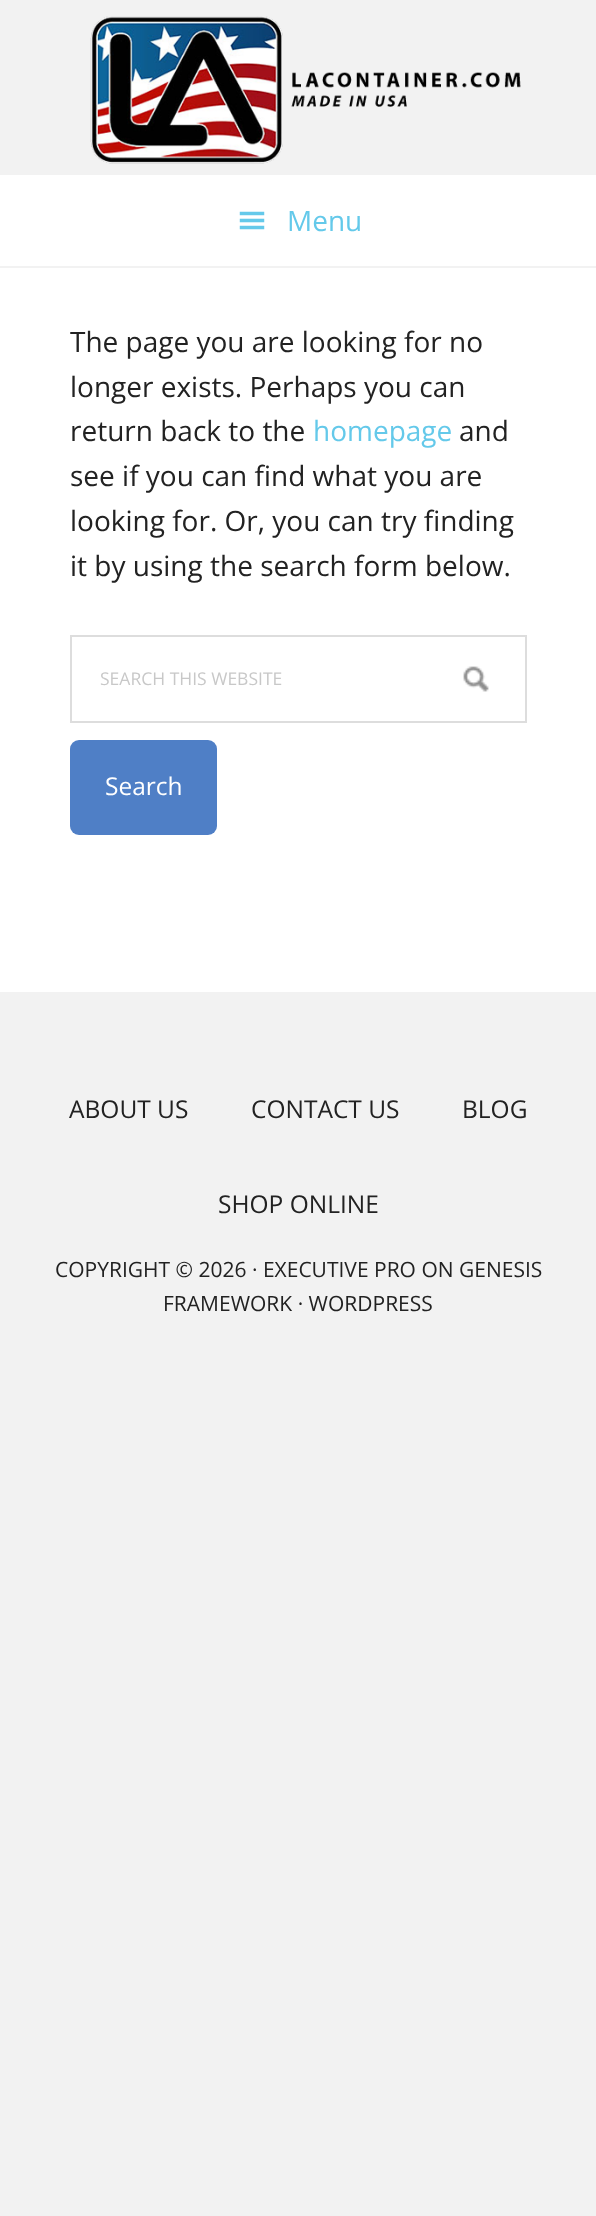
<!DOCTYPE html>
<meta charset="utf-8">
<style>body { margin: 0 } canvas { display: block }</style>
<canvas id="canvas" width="596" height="2216"></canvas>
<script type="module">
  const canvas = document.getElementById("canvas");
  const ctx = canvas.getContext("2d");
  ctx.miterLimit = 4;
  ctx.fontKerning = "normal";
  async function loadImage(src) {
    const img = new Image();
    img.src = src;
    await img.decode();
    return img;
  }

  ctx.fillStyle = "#f2f2f2";
  ctx.fillRect(0, 0, 596, 2216);
  ctx.drawImage(await loadImage("img1.png"), 90, 16, 431, 148);
  ctx.fillStyle = "#ffffff";
  ctx.fillRect(0, 175, 596, 91);
  ctx.drawImage(await loadImage("img2.png"), 239, 211, 26, 19);
  ctx.font = "28px Open Sans";
  ctx.fillStyle = "#64c9ea";
  ctx.fillText("Menu", 287, 231);
  ctx.fillStyle = "#ffffff";
  ctx.fillRect(0, 268, 596, 724);
  ctx.fillStyle = "#222222";
  ctx.fillText("The page you are looking for no", 70, 352);
  ctx.fillText("longer exists. Perhaps you can", 70, 397);
  ctx.fillText("return back to the", 70, 441);
  ctx.fillStyle = "#64c9ea";
  ctx.fillText("homepage", 313, 441);
  ctx.fillStyle = "#222222";
  ctx.fillText("and", 459, 441);
  ctx.fillText("see if you can find what you are", 70, 486);
  ctx.fillText("looking for. Or, you can try finding", 70, 531);
  ctx.fillText("it by using the search form below.", 70, 576);
  ctx.drawImage(await loadImage("img3.png"), 463, 666, 26, 26);
  ctx.strokeStyle = "#dddddd";
  ctx.lineWidth = 2;
  ctx.strokeRect(71, 636, 455, 86);
  ctx.font = "17.5px Open Sans";
  ctx.fillStyle = "#c8c8c8";
  ctx.fillText("SEARCH THIS WEBSITE", 100, 685);
  ctx.fillStyle = "#4f7fc6";
  ctx.beginPath();
  ctx.roundRect(70, 740, 147, 95, 9);
  ctx.fill();
  ctx.font = "24.5px Open Sans";
  ctx.fillStyle = "#ffffff";
  ctx.fillText("Search", 105, 795);
  ctx.fillStyle = "#222222";
  ctx.fillText("ABOUT US", 69, 1118);
  ctx.fillText("CONTACT US", 251, 1118);
  ctx.fillText("BLOG", 462, 1118);
  ctx.fillText("SHOP ONLINE", 218, 1213);
  ctx.font = "21px Open Sans";
  ctx.fillText("COPYRIGHT © 2026 · EXECUTIVE PRO ON GENESIS", 55, 1277);
  ctx.fillText("FRAMEWORK · WORDPRESS", 163, 1311);
</script>
